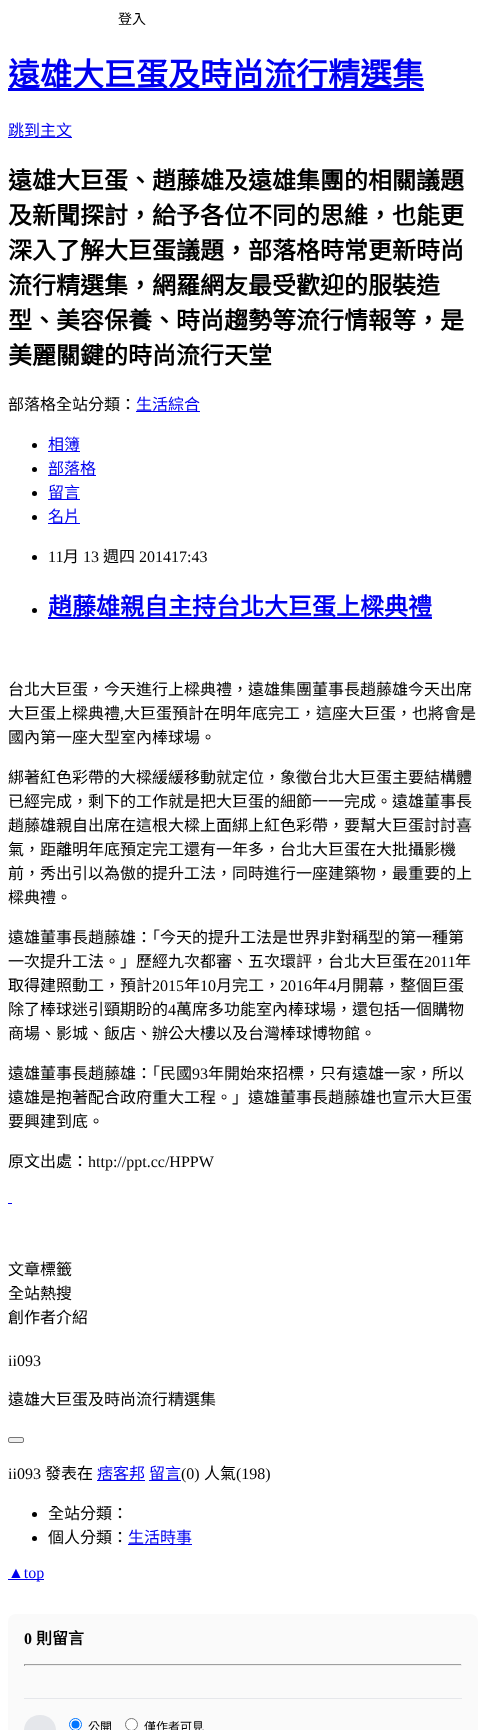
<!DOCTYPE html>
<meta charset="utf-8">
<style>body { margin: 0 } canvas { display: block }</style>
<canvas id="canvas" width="486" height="1730"></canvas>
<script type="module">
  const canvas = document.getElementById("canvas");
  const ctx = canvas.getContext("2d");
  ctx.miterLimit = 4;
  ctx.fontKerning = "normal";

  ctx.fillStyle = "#ffffff";
  ctx.fillRect(0, 0, 486, 1730);
  ctx.font = "14px Noto Sans CJK TC";
  ctx.fillStyle = "#000000";
  ctx.fillText("登入", 118, 24);
  ctx.fillStyle = "#0000ee";
  ctx.fillRect(8, 88, 416, 3);
  ctx.font = "bold 32px Noto Sans CJK TC";
  ctx.fillText("遠雄大巨蛋及時尚流行精選集", 8, 86);
  ctx.fillRect(8, 137, 64, 1);
  ctx.font = "16px Noto Sans CJK TC";
  ctx.fillText("跳到主文", 8, 136);
  ctx.font = "bold 24px Noto Sans CJK TC";
  ctx.fillStyle = "#000000";
  ctx.fillText("遠雄大巨蛋、趙藤雄及遠雄集團的相關議題", 8, 189);
  ctx.fillText("及新聞探討，給予各位不同的思維，也能更", 8, 224);
  ctx.fillText("深入了解大巨蛋議題，部落格時常更新時尚", 8, 259);
  ctx.fillText("流行精選集，網羅網友最受歡迎的服裝造", 8, 294);
  ctx.fillText("型、美容保養、時尚趨勢等流行情報等，是", 8, 329);
  ctx.fillText("美麗關鍵的時尚流行天堂", 8, 364);
  ctx.font = "16px Noto Sans CJK TC";
  ctx.fillText("部落格全站分類：", 8, 410);
  ctx.fillStyle = "#0000ee";
  ctx.fillRect(136, 411, 64, 1);
  ctx.fillText("生活綜合", 136, 410);
  ctx.fillStyle = "#000000";
  ctx.beginPath();
  ctx.arc(34.5, 445.5, 2.5, 0, Math.PI * 2);
  ctx.fill();
  ctx.fillStyle = "#0000ee";
  ctx.fillRect(48, 451, 32, 1);
  ctx.fillText("相簿", 48, 450);
  ctx.fillStyle = "#000000";
  ctx.beginPath();
  ctx.arc(34.5, 469.5, 2.5, 0, Math.PI * 2);
  ctx.fill();
  ctx.fillStyle = "#0000ee";
  ctx.fillRect(48, 475, 48, 1);
  ctx.fillText("部落格", 48, 474);
  ctx.fillStyle = "#000000";
  ctx.beginPath();
  ctx.arc(34.5, 493.5, 2.5, 0, Math.PI * 2);
  ctx.fill();
  ctx.fillStyle = "#0000ee";
  ctx.fillRect(48, 499, 32, 1);
  ctx.fillText("留言", 48, 498);
  ctx.fillStyle = "#000000";
  ctx.beginPath();
  ctx.arc(34.5, 517.5, 2.5, 0, Math.PI * 2);
  ctx.fill();
  ctx.fillStyle = "#0000ee";
  ctx.fillRect(48, 523, 32, 1);
  ctx.fillText("名片", 48, 522);
  ctx.fillStyle = "#000000";
  ctx.beginPath();
  ctx.arc(34.5, 557.5, 2.5, 0, Math.PI * 2);
  ctx.fill();
  ctx.font = "16px Liberation Serif";
  ctx.fillText("11", 48, 562);
  ctx.font = "16px Noto Sans CJK TC";
  ctx.fillText("月", 63, 562);
  ctx.font = "16px Liberation Serif";
  ctx.fillText("13", 83, 562);
  ctx.font = "16px Noto Sans CJK TC";
  ctx.fillText("週四", 103, 562);
  ctx.font = "16px Liberation Serif";
  ctx.fillText("201417:43", 139, 562);
  ctx.beginPath();
  ctx.arc(34.5, 610.5, 2.5, 0, Math.PI * 2);
  ctx.fill();
  ctx.fillStyle = "#0000ee";
  ctx.fillRect(48, 617, 384, 2);
  ctx.font = "bold 24px Noto Sans CJK TC";
  ctx.fillText("趙藤雄親自主持台北大巨蛋上樑典禮", 48, 615);
  ctx.font = "16px Noto Sans CJK TC";
  ctx.fillStyle = "#000000";
  ctx.fillText("台北大巨蛋，今天進行上樑典禮，遠雄集團董事長趙藤雄今天出席", 8, 695);
  ctx.fillText("大巨蛋上樑典禮", 8, 719);
  ctx.font = "16px Liberation Serif";
  ctx.fillText(",", 120, 719);
  ctx.font = "16px Noto Sans CJK TC";
  ctx.fillText("大巨蛋預計在明年底完工，這座大巨蛋，也將會是", 124, 719);
  ctx.fillText("國內第一座大型室內棒球場。", 8, 743);
  ctx.fillText("綁著紅色彩帶的大樑緩緩移動就定位，象徵台北大巨蛋主要結構體", 8, 783);
  ctx.fillText("已經完成，剩下的工作就是把大巨蛋的細節一一完成。遠雄董事長", 8, 807);
  ctx.fillText("趙藤雄親自出席在這根大樑上面綁上紅色彩帶，要幫大巨蛋討討喜", 8, 831);
  ctx.fillText("氣，距離明年底預定完工還有一年多，台北大巨蛋在大批攝影機", 8, 855);
  ctx.fillText("前，秀出引以為傲的提升工法，同時進行一座建築物，最重要的上", 8, 879);
  ctx.fillText("樑典禮。", 8, 903);
  ctx.fillText("遠雄董事長趙藤雄：「今天的提升工法是世界非對稱型的第一種第", 8, 943);
  ctx.fillText("一次提升工法。」歷經九次都審、五次環評，台北大巨蛋在", 8, 967);
  ctx.font = "16px Liberation Serif";
  ctx.fillText("2011", 424, 967);
  ctx.font = "16px Noto Sans CJK TC";
  ctx.fillText("年", 455, 967);
  ctx.fillText("取得建照動工，預計", 8, 991);
  ctx.font = "16px Liberation Serif";
  ctx.fillText("2015", 152, 991);
  ctx.font = "16px Noto Sans CJK TC";
  ctx.fillText("年", 184, 991);
  ctx.font = "16px Liberation Serif";
  ctx.fillText("10", 200, 991);
  ctx.font = "16px Noto Sans CJK TC";
  ctx.fillText("月完工，", 216, 991);
  ctx.font = "16px Liberation Serif";
  ctx.fillText("2016", 280, 991);
  ctx.font = "16px Noto Sans CJK TC";
  ctx.fillText("年", 312, 991);
  ctx.font = "16px Liberation Serif";
  ctx.fillText("4", 328, 991);
  ctx.font = "16px Noto Sans CJK TC";
  ctx.fillText("月開幕，整個巨蛋", 336, 991);
  ctx.fillText("除了棒球迷引頸期盼的", 8, 1015);
  ctx.font = "16px Liberation Serif";
  ctx.fillText("4", 168, 1015);
  ctx.font = "16px Noto Sans CJK TC";
  ctx.fillText("萬席多功能室內棒球場，還包括一個購物", 176, 1015);
  ctx.fillText("商場、影城、飯店、辦公大樓以及台灣棒球博物館。", 8, 1039);
  ctx.fillText("遠雄董事長趙藤雄：「民國", 8, 1079);
  ctx.font = "16px Liberation Serif";
  ctx.fillText("93", 192, 1079);
  ctx.font = "16px Noto Sans CJK TC";
  ctx.fillText("年開始來招標，只有遠雄一家，所以", 208, 1079);
  ctx.fillText("遠雄是抱著配合政府重大工程。」遠雄董事長趙藤雄也宣示大巨蛋", 8, 1103);
  ctx.fillText("要興建到底。", 8, 1127);
  ctx.fillText("原文出處：", 8, 1167);
  ctx.font = "16px Liberation Serif";
  ctx.fillText("http://ppt.cc/HPPW", 88, 1167);
  ctx.fillStyle = "#0000ee";
  ctx.fillRect(8, 1203, 4, 1);
  ctx.font = "16px Noto Sans CJK TC";
  ctx.fillStyle = "#000000";
  ctx.fillText("文章標籤", 8, 1275);
  ctx.fillText("全站熱搜", 8, 1299);
  ctx.fillText("創作者介紹", 8, 1323);
  ctx.font = "16px Liberation Serif";
  ctx.fillText("ii093", 8, 1366);
  ctx.font = "16px Noto Sans CJK TC";
  ctx.fillText("遠雄大巨蛋及時尚流行精選集", 8, 1405);
  ctx.fillStyle = "#efefef";
  ctx.beginPath();
  ctx.roundRect(8.5, 1437.5, 15, 5, 1.5);
  ctx.fill();
  ctx.strokeStyle = "#767676";
  ctx.stroke();
  ctx.font = "16px Liberation Serif";
  ctx.fillStyle = "#000000";
  ctx.fillText("ii093", 8, 1479);
  ctx.font = "16px Noto Sans CJK TC";
  ctx.fillText("發表在", 45, 1479);
  ctx.fillStyle = "#0000ee";
  ctx.fillRect(97, 1480, 48, 1);
  ctx.fillText("痞客邦", 97, 1479);
  ctx.fillRect(149, 1480, 32, 1);
  ctx.fillText("留言", 149, 1479);
  ctx.font = "16px Liberation Serif";
  ctx.fillStyle = "#000000";
  ctx.fillText("(0)", 181, 1479);
  ctx.font = "16px Noto Sans CJK TC";
  ctx.fillText("人氣", 204, 1479);
  ctx.font = "16px Liberation Serif";
  ctx.fillText("(198)", 236, 1479);
  ctx.beginPath();
  ctx.arc(34.5, 1514.5, 2.5, 0, Math.PI * 2);
  ctx.fill();
  ctx.font = "16px Noto Sans CJK TC";
  ctx.fillText("全站分類：", 48, 1519);
  ctx.beginPath();
  ctx.arc(34.5, 1538.5, 2.5, 0, Math.PI * 2);
  ctx.fill();
  ctx.fillText("個人分類：", 48, 1543);
  ctx.fillStyle = "#0000ee";
  ctx.fillRect(128, 1544, 64, 1);
  ctx.fillText("生活時事", 128, 1543);
  ctx.fillRect(8, 1579, 36, 1);
  ctx.font = "16px Liberation Serif";
  ctx.fillText("▲top", 8, 1578);
  ctx.fillStyle = "#fafafa";
  ctx.beginPath();
  ctx.roundRect(8, 1614, 470, 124, 8);
  ctx.fill();
  ctx.font = "bold 16px Liberation Serif";
  ctx.fillStyle = "#000000";
  ctx.fillText("0", 24, 1644);
  ctx.font = "bold 16px Noto Sans CJK TC";
  ctx.fillText("則留言", 36, 1644);
  ctx.fillStyle = "#9f9f9f";
  ctx.fillRect(24, 1664, 438, 1);
  ctx.fillStyle = "#eeeeee";
  ctx.fillRect(461, 1664, 1, 2);
  ctx.fillRect(24, 1665, 438, 1);
  ctx.fillStyle = "#9f9f9f";
  ctx.fillRect(24, 1664, 1, 2);
  ctx.fillStyle = "#e5e7eb";
  ctx.fillRect(24, 1698, 438, 1);
  ctx.beginPath();
  ctx.roundRect(24, 1715, 32, 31, 16);
  ctx.fill();
  ctx.fillStyle = "#ffffff";
  ctx.beginPath();
  ctx.arc(75.5, 1724.5, 6, 0, Math.PI * 2);
  ctx.fill();
  ctx.strokeStyle = "#0075ff";
  ctx.stroke();
  ctx.fillStyle = "#0075ff";
  ctx.beginPath();
  ctx.arc(75.5, 1724.5, 4, 0, Math.PI * 2);
  ctx.fill();
  ctx.font = "12px Noto Sans CJK TC";
  ctx.fillStyle = "#000000";
  ctx.fillText("公開", 88, 1731);
  ctx.fillStyle = "#ffffff";
  ctx.beginPath();
  ctx.arc(131.5, 1724.5, 6, 0, Math.PI * 2);
  ctx.fill();
  ctx.strokeStyle = "#767676";
  ctx.stroke();
  ctx.fillStyle = "#000000";
  ctx.fillText("僅作者可見", 144, 1731);
</script>
